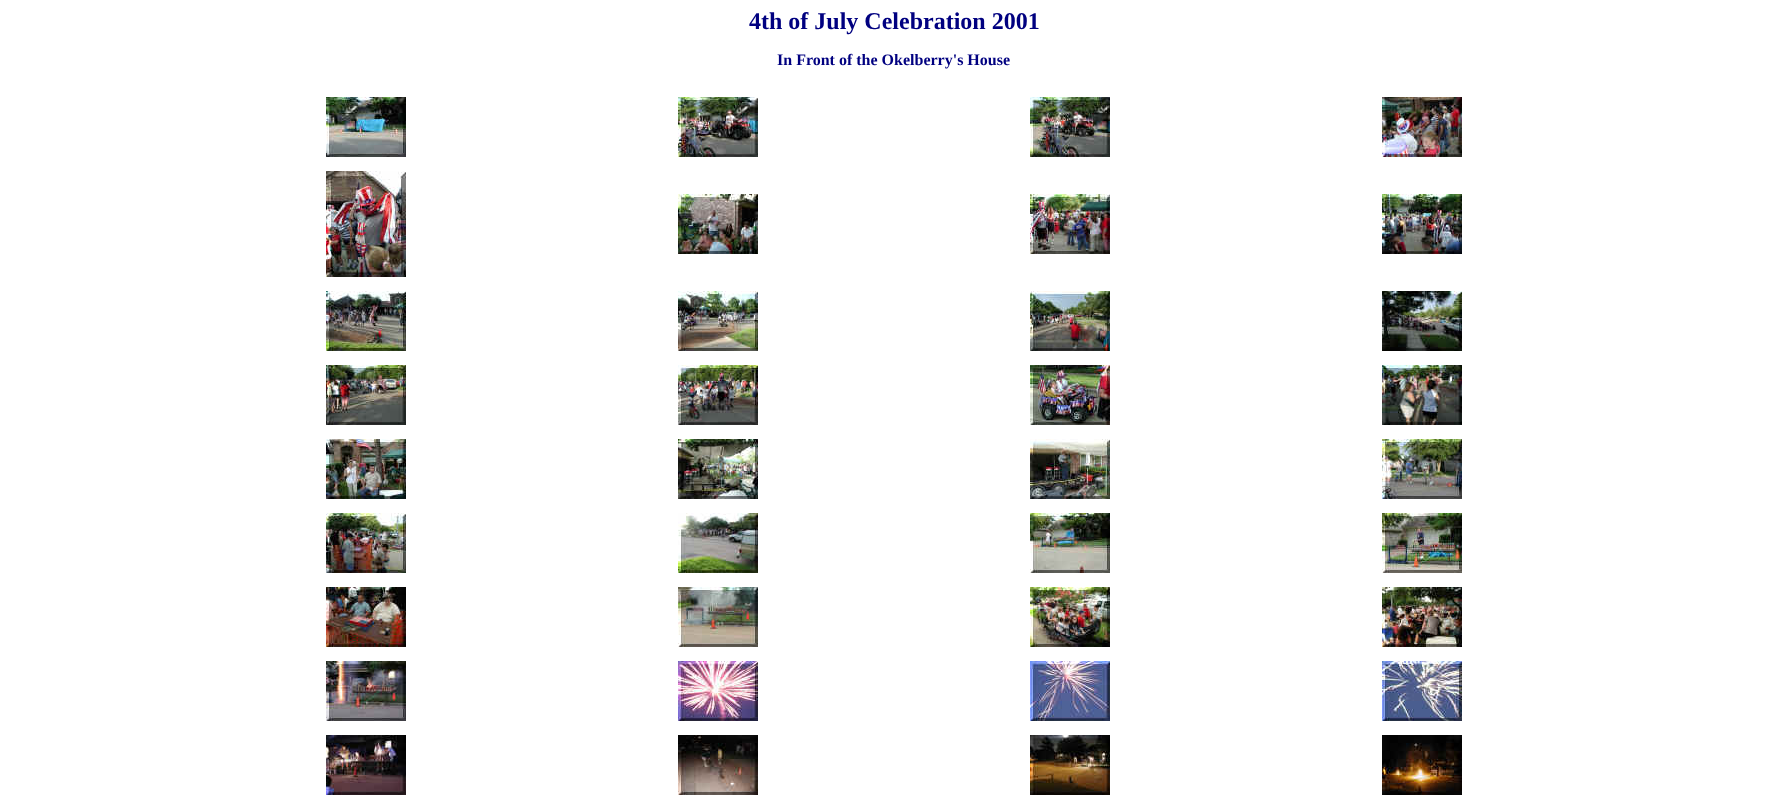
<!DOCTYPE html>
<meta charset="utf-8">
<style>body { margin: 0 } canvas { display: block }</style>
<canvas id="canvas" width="1788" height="801"></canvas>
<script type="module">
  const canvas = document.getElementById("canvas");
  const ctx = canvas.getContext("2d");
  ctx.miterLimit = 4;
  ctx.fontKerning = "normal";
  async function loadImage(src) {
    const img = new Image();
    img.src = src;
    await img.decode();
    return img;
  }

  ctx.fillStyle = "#ffffff";
  ctx.fillRect(0, 0, 1788, 801);
  ctx.font = "bold 24px Liberation Serif";
  ctx.fillStyle = "#000080";
  ctx.fillText("4th of July Celebration 2001", 749, 29);
  ctx.font = "bold 16px Liberation Serif";
  ctx.fillText("In Front of the Okelberry's House", 777, 65);
  ctx.drawImage(await loadImage("img1.png"), 326, 97, 80, 60);
  ctx.drawImage(await loadImage("img2.png"), 678, 97, 80, 60);
  ctx.drawImage(await loadImage("img3.png"), 1030, 97, 80, 60);
  ctx.drawImage(await loadImage("img4.png"), 1382, 97, 80, 60);
  ctx.drawImage(await loadImage("img5.png"), 326, 171, 80, 106);
  ctx.drawImage(await loadImage("img6.png"), 678, 194, 80, 60);
  ctx.drawImage(await loadImage("img7.png"), 1030, 194, 80, 60);
  ctx.drawImage(await loadImage("img8.png"), 1382, 194, 80, 60);
  ctx.drawImage(await loadImage("img9.png"), 326, 291, 80, 60);
  ctx.drawImage(await loadImage("img10.png"), 678, 291, 80, 60);
  ctx.drawImage(await loadImage("img11.png"), 1030, 291, 80, 60);
  ctx.drawImage(await loadImage("img12.png"), 1382, 291, 80, 60);
  ctx.drawImage(await loadImage("img13.png"), 326, 365, 80, 60);
  ctx.drawImage(await loadImage("img14.png"), 678, 365, 80, 60);
  ctx.drawImage(await loadImage("img15.png"), 1030, 365, 80, 60);
  ctx.drawImage(await loadImage("img16.png"), 1382, 365, 80, 60);
  ctx.drawImage(await loadImage("img17.png"), 326, 439, 80, 60);
  ctx.drawImage(await loadImage("img18.png"), 678, 439, 80, 60);
  ctx.drawImage(await loadImage("img19.png"), 1030, 439, 80, 60);
  ctx.drawImage(await loadImage("img20.png"), 1382, 439, 80, 60);
  ctx.drawImage(await loadImage("img21.png"), 326, 513, 80, 60);
  ctx.drawImage(await loadImage("img22.png"), 678, 513, 80, 60);
  ctx.drawImage(await loadImage("img23.png"), 1030, 513, 80, 60);
  ctx.drawImage(await loadImage("img24.png"), 1382, 513, 80, 60);
  ctx.drawImage(await loadImage("img25.png"), 326, 587, 80, 60);
  ctx.drawImage(await loadImage("img26.png"), 678, 587, 80, 60);
  ctx.drawImage(await loadImage("img27.png"), 1030, 587, 80, 60);
  ctx.drawImage(await loadImage("img28.png"), 1382, 587, 80, 60);
  ctx.drawImage(await loadImage("img29.png"), 326, 661, 80, 60);
  ctx.drawImage(await loadImage("img30.png"), 678, 661, 80, 60);
  ctx.drawImage(await loadImage("img31.png"), 1030, 661, 80, 60);
  ctx.drawImage(await loadImage("img32.png"), 1382, 661, 80, 60);
  ctx.drawImage(await loadImage("img33.png"), 326, 735, 80, 60);
  ctx.drawImage(await loadImage("img34.png"), 678, 735, 80, 60);
  ctx.drawImage(await loadImage("img35.png"), 1030, 735, 80, 60);
  ctx.drawImage(await loadImage("img36.png"), 1382, 735, 80, 60);
</script>
